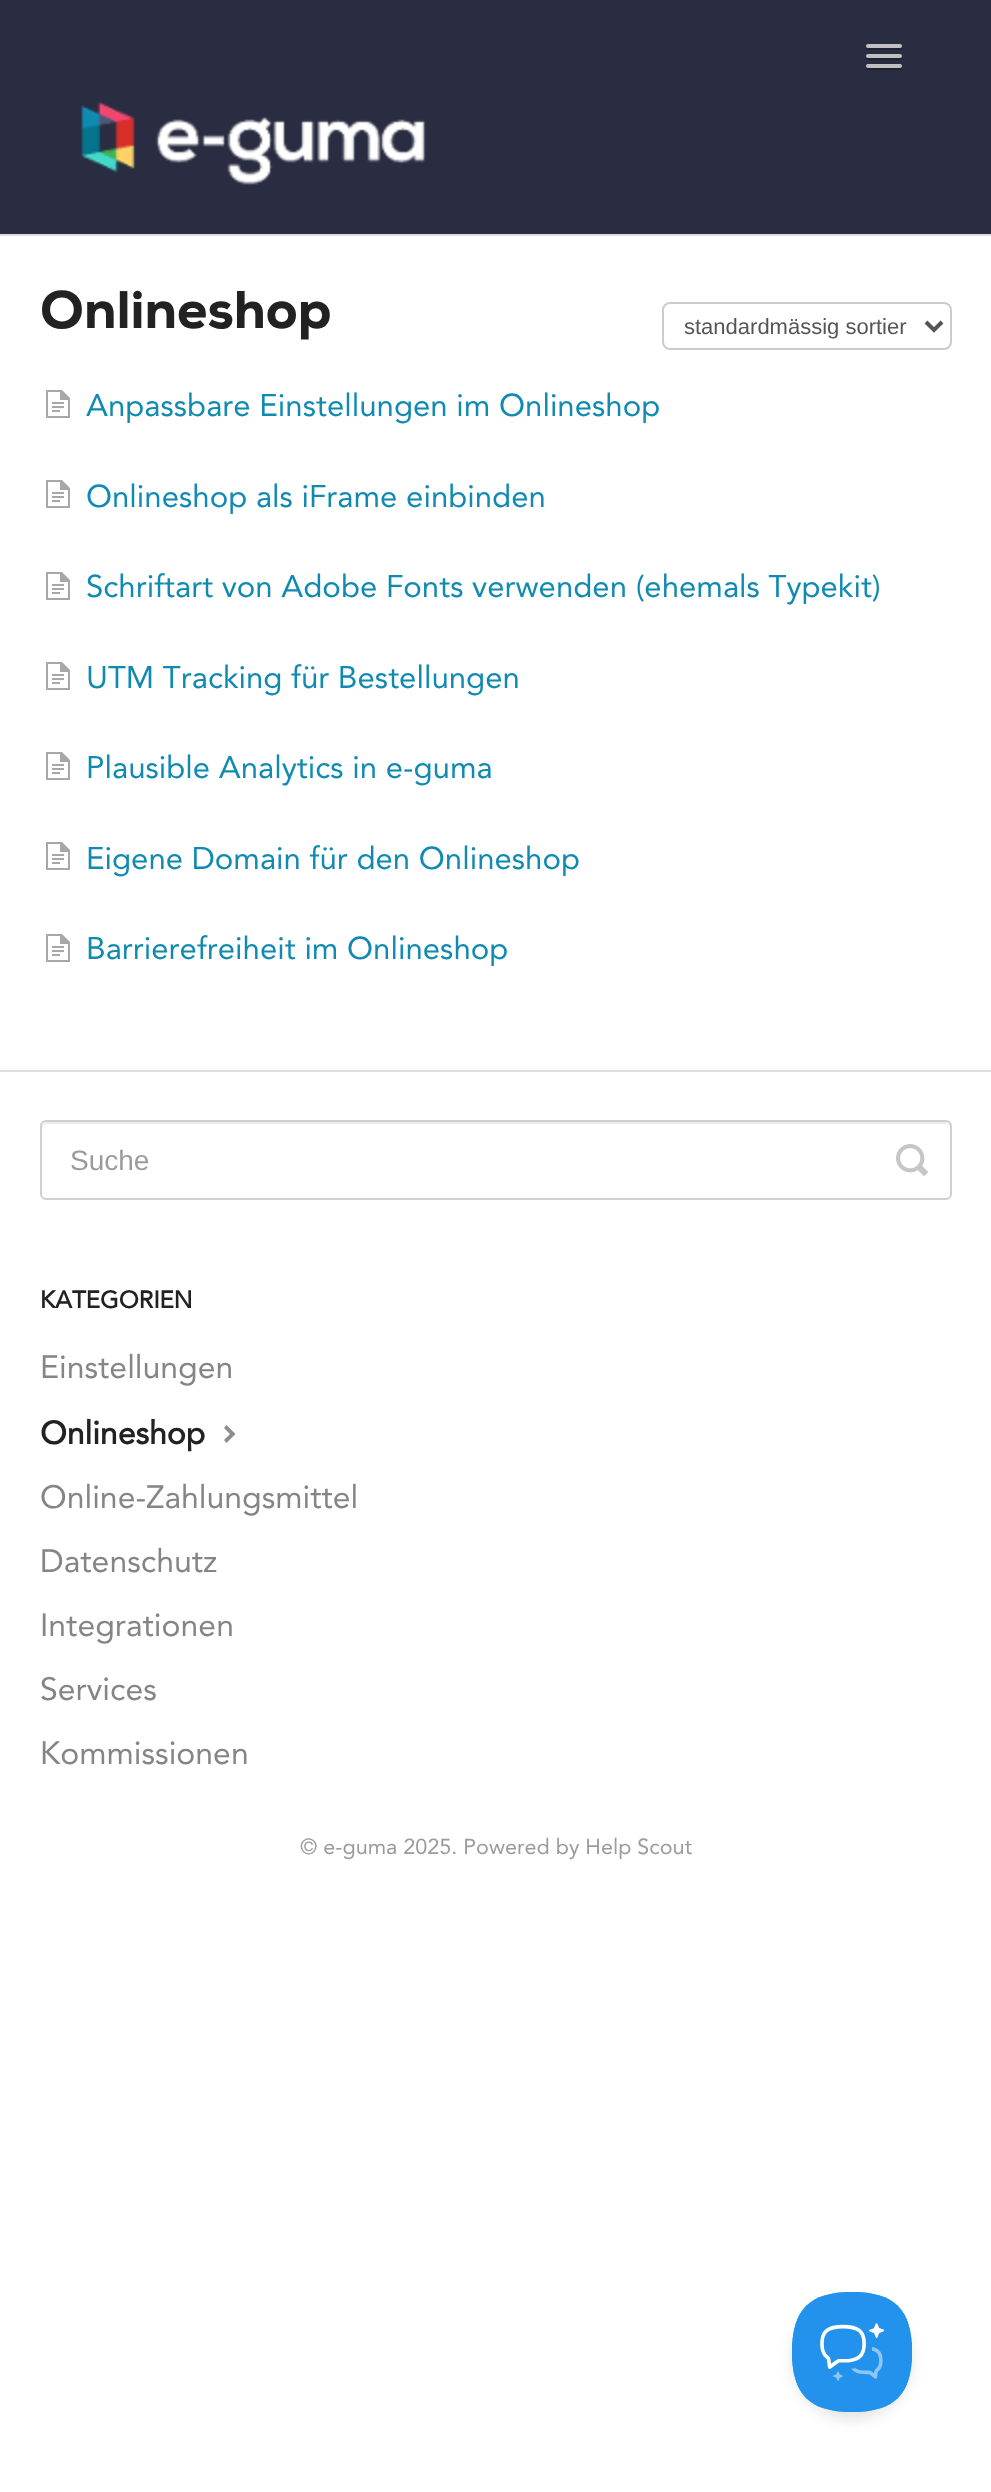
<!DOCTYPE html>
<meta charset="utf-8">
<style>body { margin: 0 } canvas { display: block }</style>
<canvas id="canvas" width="991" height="2492"></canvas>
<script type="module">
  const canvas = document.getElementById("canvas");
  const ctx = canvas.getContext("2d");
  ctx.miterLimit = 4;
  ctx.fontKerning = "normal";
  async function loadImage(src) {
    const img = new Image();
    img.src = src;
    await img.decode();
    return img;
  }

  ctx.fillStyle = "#ffffff";
  ctx.fillRect(0, 0, 991, 2492);
  ctx.fillStyle = "#2a2d42";
  ctx.fillRect(0, 0, 991, 234);
  ctx.fillStyle = "#202232";
  ctx.beginPath();
  ctx.moveTo(866.5, 47);
  ctx.bezierCurveTo(864, 51, 873, 50, 873.5, 50);
  ctx.lineTo(894.5, 50);
  ctx.bezierCurveTo(895, 50, 904, 51, 901.5, 47);
  ctx.bezierCurveTo(901.5, 47.5, 900.5, 48, 900, 48);
  ctx.lineTo(868, 48);
  ctx.bezierCurveTo(867.5, 48, 866.5, 47.5, 866.5, 47);
  ctx.closePath();
  ctx.fill();
  ctx.fillStyle = "#c0c0c0";
  ctx.beginPath();
  ctx.roundRect(866, 44, 36, 4, 2);
  ctx.fill();
  ctx.fillStyle = "#202232";
  ctx.beginPath();
  ctx.moveTo(866.5, 57);
  ctx.bezierCurveTo(864, 61, 873, 60, 873.5, 60);
  ctx.lineTo(894.5, 60);
  ctx.bezierCurveTo(895, 60, 904, 61, 901.5, 57);
  ctx.bezierCurveTo(901.5, 57.5, 900.5, 58, 900, 58);
  ctx.lineTo(868, 58);
  ctx.bezierCurveTo(867.5, 58, 866.5, 57.5, 866.5, 57);
  ctx.closePath();
  ctx.fill();
  ctx.fillStyle = "#c0c0c0";
  ctx.beginPath();
  ctx.roundRect(866, 54, 36, 4, 2);
  ctx.fill();
  ctx.fillStyle = "#202232";
  ctx.beginPath();
  ctx.moveTo(866.5, 67);
  ctx.bezierCurveTo(864, 71, 873, 70, 873.5, 70);
  ctx.lineTo(894.5, 70);
  ctx.bezierCurveTo(895, 70, 904, 71, 901.5, 67);
  ctx.bezierCurveTo(901.5, 67.5, 900.5, 68, 900, 68);
  ctx.lineTo(868, 68);
  ctx.bezierCurveTo(867.5, 68, 866.5, 67.5, 866.5, 67);
  ctx.closePath();
  ctx.fill();
  ctx.fillStyle = "#c0c0c0";
  ctx.beginPath();
  ctx.roundRect(866, 64, 36, 4, 2);
  ctx.fill();
  ctx.drawImage(await loadImage("img1.png"), 80, 101, 346, 84);
  ctx.fillStyle = "#dedede";
  ctx.fillRect(0, 234, 991, 2);
  ctx.fillRect(0, 1070, 991, 2);
  ctx.font = "52.75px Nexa";
  ctx.fillStyle = "#222222";
  ctx.fillText("Onlineshop", 40, 328);
  ctx.beginPath();
  ctx.roundRect(663, 303, 288, 46, 7);
  ctx.strokeStyle = "#cccccc";
  ctx.lineWidth = 2;
  ctx.stroke();
  ctx.beginPath();
  ctx.moveTo(926, 322);
  ctx.lineTo(934, 330);
  ctx.lineTo(942, 322);
  ctx.strokeStyle = "#555555";
  ctx.lineWidth = 4;
  ctx.stroke();
  ctx.font = "22px Liberation Sans";
  ctx.fillStyle = "#555555";
  ctx.fillText("standardmässig sortier", 684, 334);
  ctx.drawImage(await loadImage("img2.png"), 46, 390, 24, 28);
  ctx.font = "31.2px Avenir";
  ctx.fillStyle = "#118ab2";
  ctx.fillText("Anpassbare Einstellungen im Onlineshop", 86, 416);
  ctx.drawImage(await loadImage("img2.png"), 46, 480, 24, 28);
  ctx.fillText("Onlineshop als iFrame einbinden", 86, 507);
  ctx.drawImage(await loadImage("img2.png"), 46, 572, 24, 28);
  ctx.fillText("Schriftart von Adobe Fonts verwenden (ehemals Typekit)", 86, 597);
  ctx.drawImage(await loadImage("img2.png"), 46, 662, 24, 28);
  ctx.fillText("UTM Tracking für Bestellungen", 86, 688);
  ctx.drawImage(await loadImage("img2.png"), 46, 752, 24, 28);
  ctx.fillText("Plausible Analytics in e-guma", 86, 778);
  ctx.drawImage(await loadImage("img2.png"), 46, 842, 24, 28);
  ctx.fillText("Eigene Domain für den Onlineshop", 86, 869);
  ctx.drawImage(await loadImage("img2.png"), 46, 934, 24, 28);
  ctx.fillText("Barrierefreiheit im Onlineshop", 86, 959);
  ctx.fillStyle = "#ececec";
  ctx.beginPath();
  ctx.moveTo(46, 1124);
  ctx.lineTo(946, 1124);
  ctx.bezierCurveTo(948, 1124, 950, 1126, 950, 1128);
  ctx.bezierCurveTo(950, 1125, 950, 1122, 946, 1122);
  ctx.lineTo(46, 1122);
  ctx.bezierCurveTo(42, 1122, 42, 1125, 42, 1128);
  ctx.bezierCurveTo(42, 1126, 44, 1124, 46, 1124);
  ctx.closePath();
  ctx.fill();
  ctx.beginPath();
  ctx.roundRect(41, 1121, 910, 78, 5);
  ctx.strokeStyle = "#d0d0d0";
  ctx.lineWidth = 2;
  ctx.stroke();
  ctx.font = "28px Liberation Sans";
  ctx.fillStyle = "#9b9b9b";
  ctx.fillText("Suche", 70, 1170);
  ctx.drawImage(await loadImage("img3.png"), 896, 1144, 32, 32);
  ctx.font = "bold 24px Avenir";
  ctx.fillStyle = "#222222";
  ctx.fillText("KATEGORIEN", 40, 1308);
  ctx.font = "32px Avenir";
  ctx.fillStyle = "#858585";
  ctx.fillText("Einstellungen", 40, 1378);
  ctx.font = "bold 32px Avenir";
  ctx.fillStyle = "#222222";
  ctx.fillText("Onlineshop", 40, 1444);
  ctx.fillStyle = "#8d8d8d";
  ctx.beginPath();
  ctx.moveTo(226.5, 1425);
  ctx.lineTo(224, 1428);
  ctx.lineTo(230, 1434);
  ctx.lineTo(224, 1440);
  ctx.lineTo(226.5, 1443);
  ctx.lineTo(235.5, 1434);
  ctx.closePath();
  ctx.fill();
  ctx.font = "32px Avenir";
  ctx.fillStyle = "#858585";
  ctx.fillText("Online-Zahlungsmittel", 40, 1508);
  ctx.fillText("Datenschutz", 40, 1572);
  ctx.fillText("Integrationen", 40, 1636);
  ctx.fillText("Services", 40, 1700);
  ctx.fillText("Kommissionen", 40, 1764);
  ctx.font = "21.6px Avenir";
  ctx.fillStyle = "#9b9b9b";
  ctx.fillText("© e-guma 2025. Powered by Help Scout", 300, 1854);
  ctx.fillStyle = "rgba(0, 0, 0, 0.1)";
  ctx.filter = "blur(7px)";
  ctx.beginPath();
  ctx.roundRect(792, 2300, 120, 120, 60);
  ctx.fill();
  ctx.filter = "none";
  ctx.drawImage(await loadImage("img4.png"), 792, 2292, 120, 120);
</script>
